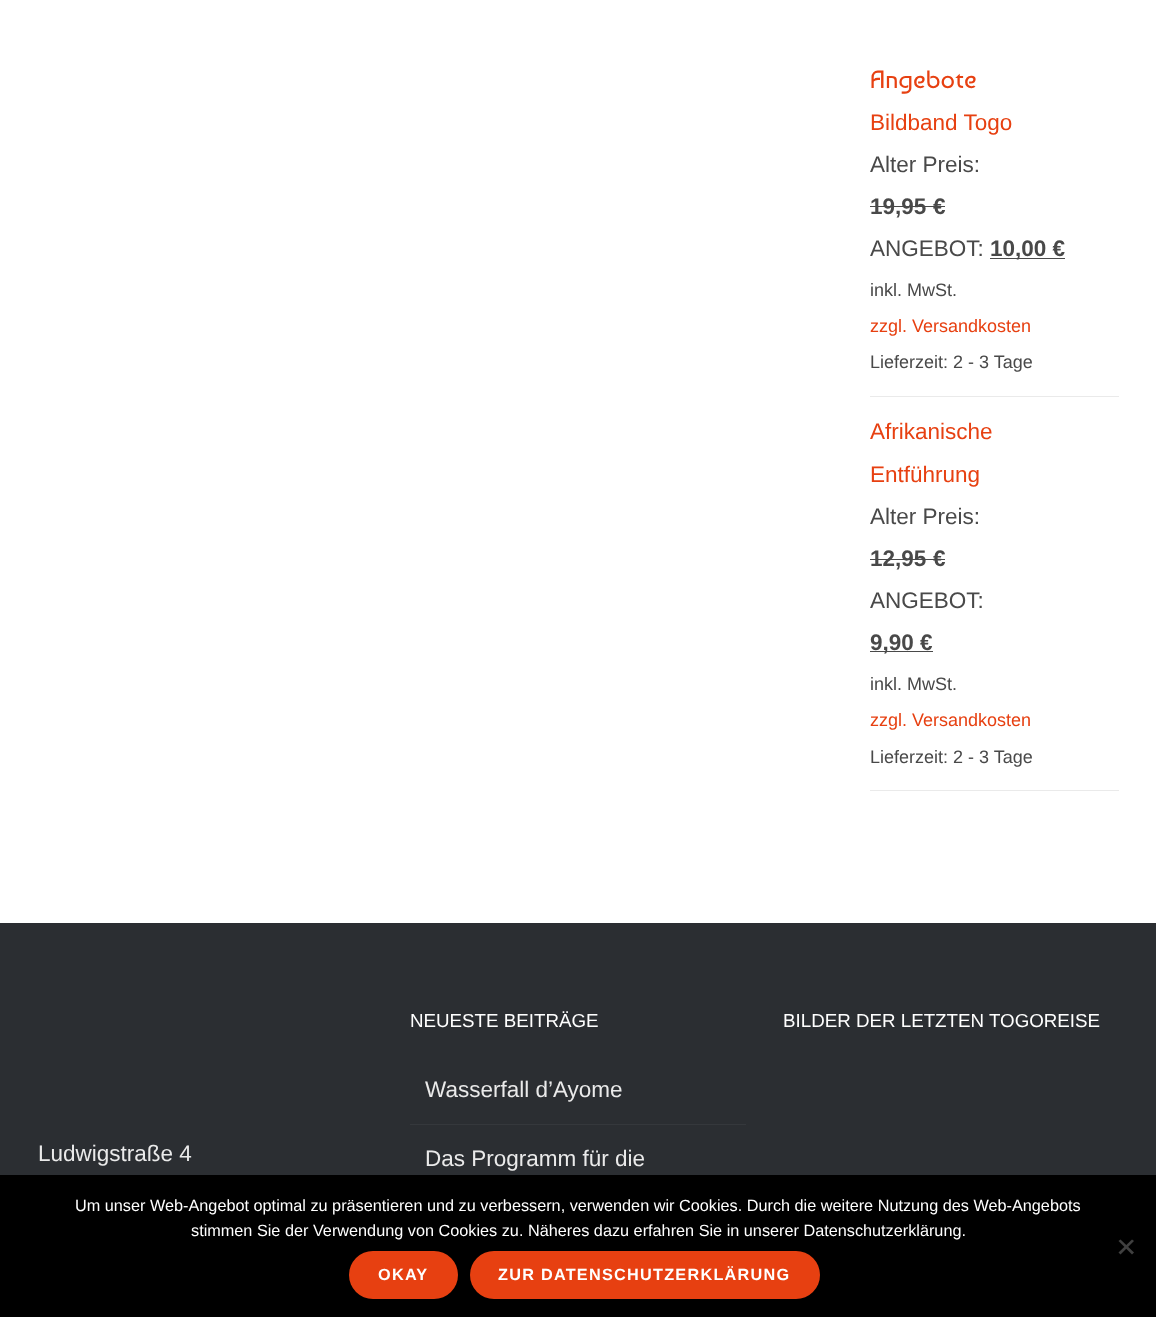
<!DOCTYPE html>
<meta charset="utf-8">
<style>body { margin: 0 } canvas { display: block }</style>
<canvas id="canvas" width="1156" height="1317"></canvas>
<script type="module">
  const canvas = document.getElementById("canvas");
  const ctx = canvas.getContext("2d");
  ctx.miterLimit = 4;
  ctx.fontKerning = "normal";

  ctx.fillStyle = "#ffffff";
  ctx.fillRect(0, 0, 1156, 1317);
  ctx.font = "25px Baumans";
  ctx.fillStyle = "#e74011";
  ctx.fillText("Angebote", 870, 88);
  ctx.fillStyle = "#eaeaea";
  ctx.fillRect(870, 396, 249, 1);
  ctx.font = "22.5px Liberation Sans";
  ctx.fillStyle = "#e74011";
  ctx.fillText("Bildband Togo", 870, 130);
  ctx.fillStyle = "#494949";
  ctx.fillText("Alter Preis:", 870, 172);
  ctx.font = "bold 22.5px Liberation Sans";
  ctx.fillText("19,95", 870, 214);
  ctx.fillRect(870, 206, 63, 1);
  ctx.fillText("€", 933, 214);
  ctx.fillRect(933, 206, 12, 1);
  ctx.font = "22.5px Liberation Sans";
  ctx.fillText("ANGEBOT:", 870, 256);
  ctx.fillRect(990, 258, 75, 1);
  ctx.font = "bold 22.5px Liberation Sans";
  ctx.fillText("10,00 €", 990, 256);
  ctx.font = "18px Liberation Sans";
  ctx.fillText("inkl. MwSt.", 870, 296);
  ctx.fillStyle = "#e74011";
  ctx.fillText("zzgl. Versandkosten", 870, 332);
  ctx.fillStyle = "#494949";
  ctx.fillText("Lieferzeit: 2 - 3 Tage", 870, 368);
  ctx.fillStyle = "#eaeaea";
  ctx.fillRect(870, 790, 249, 1);
  ctx.font = "22.5px Liberation Sans";
  ctx.fillStyle = "#e74011";
  ctx.fillText("Afrikanische", 870, 439);
  ctx.fillText("Entführung", 870, 482);
  ctx.fillStyle = "#494949";
  ctx.fillText("Alter Preis:", 870, 524);
  ctx.font = "bold 22.5px Liberation Sans";
  ctx.fillText("12,95", 870, 566);
  ctx.fillRect(870, 559, 63, 1);
  ctx.fillText("€", 933, 566);
  ctx.fillRect(933, 559, 12, 1);
  ctx.font = "22.5px Liberation Sans";
  ctx.fillText("ANGEBOT:", 870, 608);
  ctx.fillRect(870, 651, 63, 1);
  ctx.font = "bold 22.5px Liberation Sans";
  ctx.fillText("9,90 €", 870, 650);
  ctx.font = "18px Liberation Sans";
  ctx.fillText("inkl. MwSt.", 870, 690);
  ctx.fillStyle = "#e74011";
  ctx.fillText("zzgl. Versandkosten", 870, 726);
  ctx.fillStyle = "#494949";
  ctx.fillText("Lieferzeit: 2 - 3 Tage", 870, 763);
  ctx.fillStyle = "#2b2e32";
  ctx.fillRect(0, 923, 1156, 252);
  ctx.font = "18.75px Liberation Sans";
  ctx.fillStyle = "#ffffff";
  ctx.fillText("NEUESTE BEITRÄGE", 410, 1027);
  ctx.fillStyle = "#35383c";
  ctx.fillRect(410, 1124, 336, 1);
  ctx.font = "22.5px Liberation Sans";
  ctx.fillStyle = "#eaeaea";
  ctx.fillText("Wasserfall d’Ayome", 425, 1097);
  ctx.fillText("Das Programm für die", 425, 1166);
  ctx.font = "18.75px Liberation Sans";
  ctx.fillStyle = "#ffffff";
  ctx.fillText("BILDER DER LETZTEN TOGOREISE", 783, 1027);
  ctx.font = "22.5px Liberation Sans";
  ctx.fillStyle = "#eaeaea";
  ctx.fillText("Ludwigstraße 4", 38, 1161);
  ctx.fillStyle = "#000000";
  ctx.fillRect(0, 1175, 1156, 142);
  ctx.font = "16.25px Liberation Sans";
  ctx.fillStyle = "#ffffff";
  ctx.fillText("Um unser Web-Angebot optimal zu präsentieren und zu verbessern, verwenden wir Cookies. Durch die weitere Nutzung des Web-Angebots", 75, 1211);
  ctx.fillText("stimmen Sie der Verwendung von Cookies zu. Näheres dazu erfahren Sie in unserer Datenschutzerklärung.", 191, 1236);
  ctx.fillStyle = "#404040";
  ctx.beginPath();
  ctx.moveTo(1132, 1239.5);
  ctx.lineTo(1134, 1241);
  ctx.lineTo(1120.5, 1254.5);
  ctx.lineTo(1118.5, 1252.5);
  ctx.closePath();
  ctx.fill();
  ctx.beginPath();
  ctx.moveTo(1118.5, 1241);
  ctx.lineTo(1120.5, 1239.5);
  ctx.lineTo(1134, 1252.5);
  ctx.lineTo(1132, 1254.5);
  ctx.closePath();
  ctx.fill();
  ctx.fillStyle = "#e74011";
  ctx.beginPath();
  ctx.roundRect(349, 1251, 109, 48, 24);
  ctx.fill();
  ctx.letterSpacing = "1.25px";
  ctx.font = "bold 16.25px Liberation Sans";
  ctx.fillStyle = "#ffffff";
  ctx.fillText("OKAY", 378, 1280);
  ctx.fillStyle = "#e74011";
  ctx.beginPath();
  ctx.roundRect(470, 1251, 350, 48, 24);
  ctx.fill();
  ctx.fillStyle = "#ffffff";
  ctx.fillText("ZUR DATENSCHUTZERKLÄRUNG", 498, 1280);
</script>
